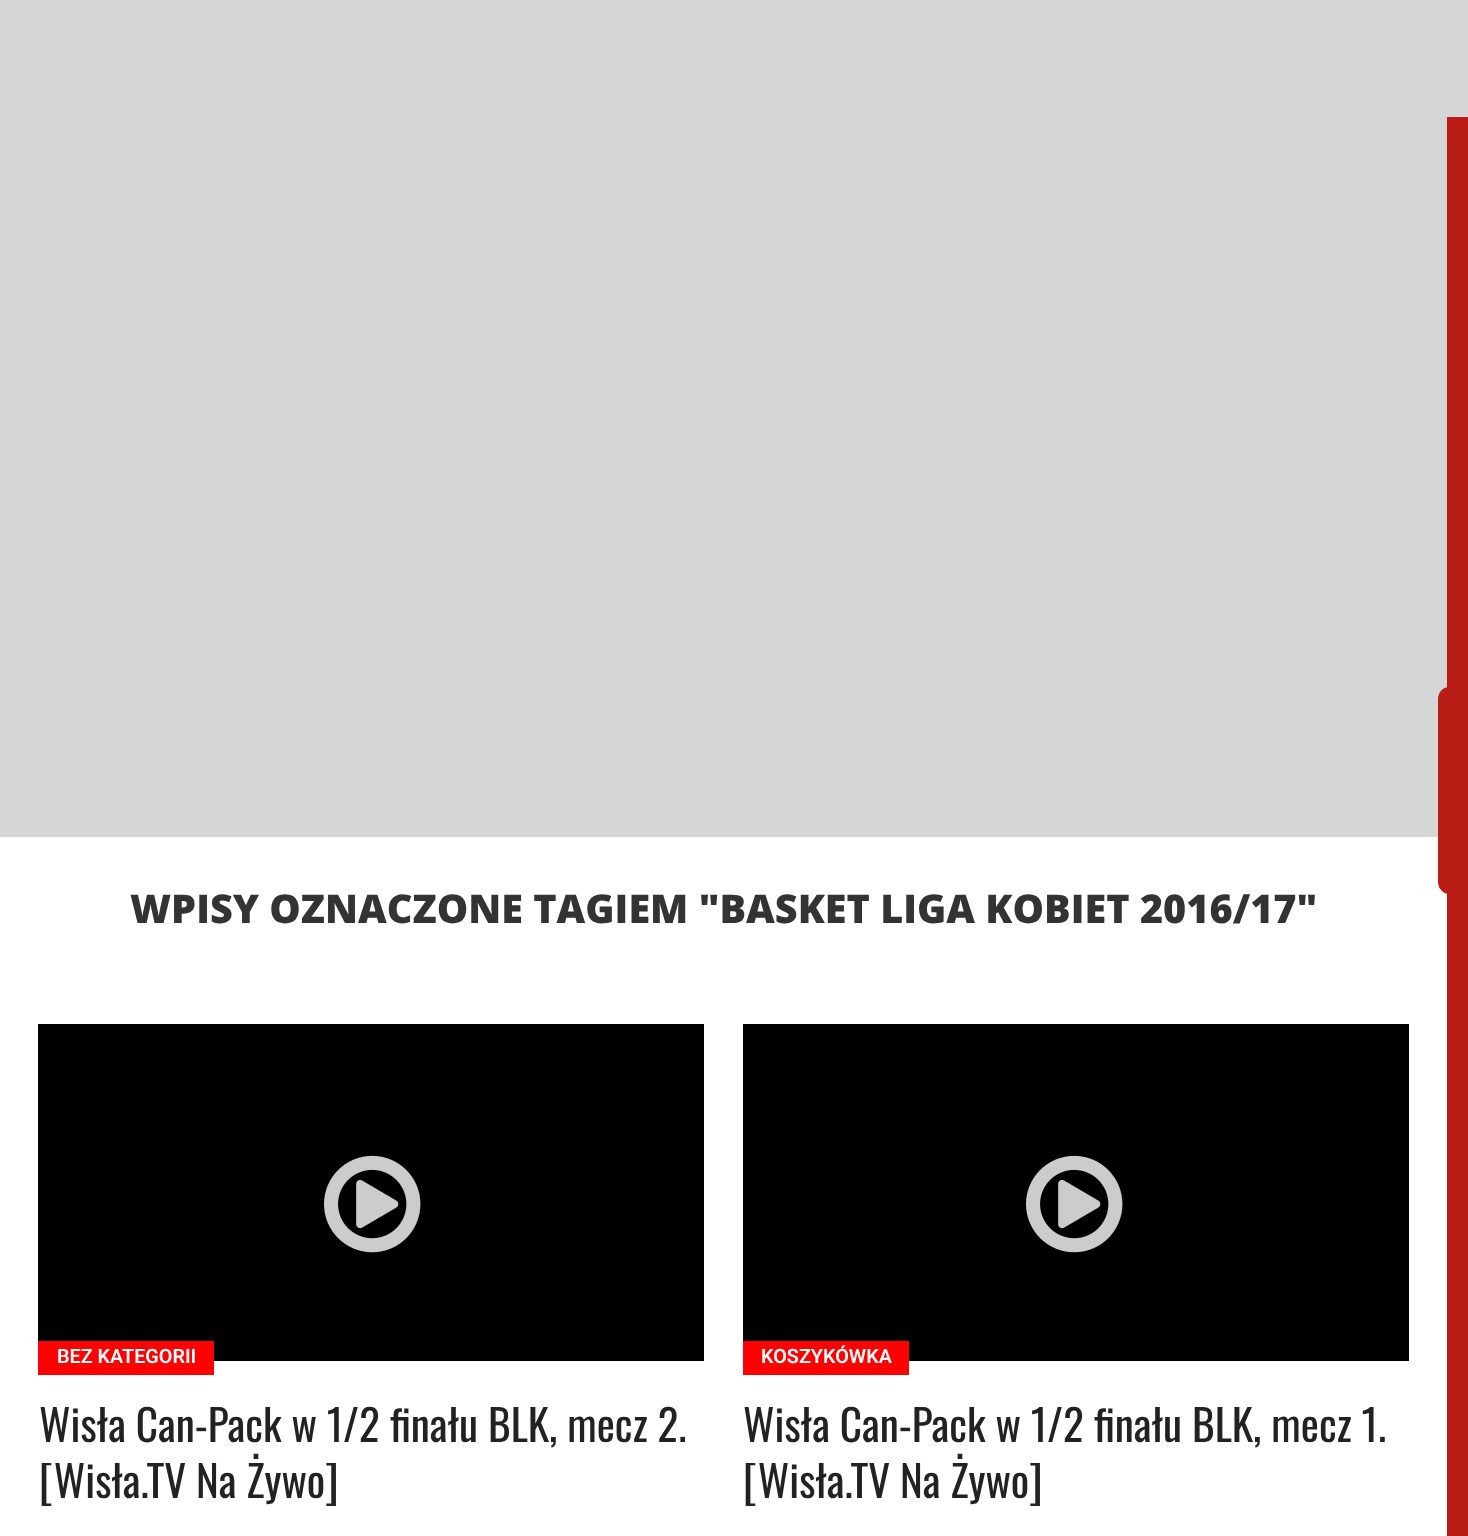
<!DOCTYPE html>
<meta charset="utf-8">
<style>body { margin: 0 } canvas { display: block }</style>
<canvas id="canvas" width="1468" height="1536"></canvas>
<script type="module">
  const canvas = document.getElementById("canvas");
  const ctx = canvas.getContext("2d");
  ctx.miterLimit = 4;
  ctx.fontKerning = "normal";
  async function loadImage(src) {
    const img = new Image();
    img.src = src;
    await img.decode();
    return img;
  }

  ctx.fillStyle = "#d6d6d6";
  ctx.fillRect(0, 0, 1468, 1536);
  ctx.fillStyle = "#ffffff";
  ctx.fillRect(0, 837, 1447, 699);
  ctx.font = "800 39.6px Open Sans";
  ctx.fillStyle = "#333333";
  ctx.fillText("WPISY OZNACZONE TAGIEM \"BASKET LIGA KOBIET 2016/17\"", 130, 923);
  ctx.fillStyle = "#000000";
  ctx.fillRect(38, 1024, 666, 337);
  ctx.drawImage(await loadImage("img1.png"), 324, 1155, 97, 98);
  ctx.fillStyle = "#ff0000";
  ctx.fillRect(38, 1341, 176, 34);
  ctx.font = "600 19.75px Roboto";
  ctx.fillStyle = "#ffffff";
  ctx.fillText("BEZ KATEGORII", 57, 1363);
  ctx.font = "43.25px Oswald";
  ctx.fillStyle = "#222222";
  ctx.fillText("Wisła Can-Pack w 1/2 finału BLK, mecz 2.", 39, 1442);
  ctx.fillText("[Wisła.TV Na Żywo]", 39, 1498);
  ctx.fillStyle = "#000000";
  ctx.fillRect(743, 1024, 666, 337);
  ctx.drawImage(await loadImage("img1.png"), 1026, 1155, 97, 98);
  ctx.fillStyle = "#ff0000";
  ctx.fillRect(743, 1341, 166, 34);
  ctx.font = "600 19.75px Roboto";
  ctx.fillStyle = "#ffffff";
  ctx.fillText("KOSZYKÓWKA", 761, 1363);
  ctx.font = "43.25px Oswald";
  ctx.fillStyle = "#222222";
  ctx.fillText("Wisła Can-Pack w 1/2 finału BLK, mecz 1.", 743, 1442);
  ctx.fillText("[Wisła.TV Na Żywo]", 743, 1498);
  ctx.fillStyle = "#b81c14";
  ctx.fillRect(1447, 117, 21, 1419);
  ctx.beginPath();
  ctx.moveTo(1438, 882);
  ctx.lineTo(1438, 699);
  ctx.bezierCurveTo(1438, 692, 1443, 687, 1449, 687);
  ctx.lineTo(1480, 687);
  ctx.bezierCurveTo(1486, 687, 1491, 692, 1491, 699);
  ctx.lineTo(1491, 882);
  ctx.bezierCurveTo(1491, 888, 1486, 894, 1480, 894);
  ctx.lineTo(1449, 894);
  ctx.bezierCurveTo(1443, 894, 1438, 888, 1438, 882);
  ctx.closePath();
  ctx.fill();
</script>
